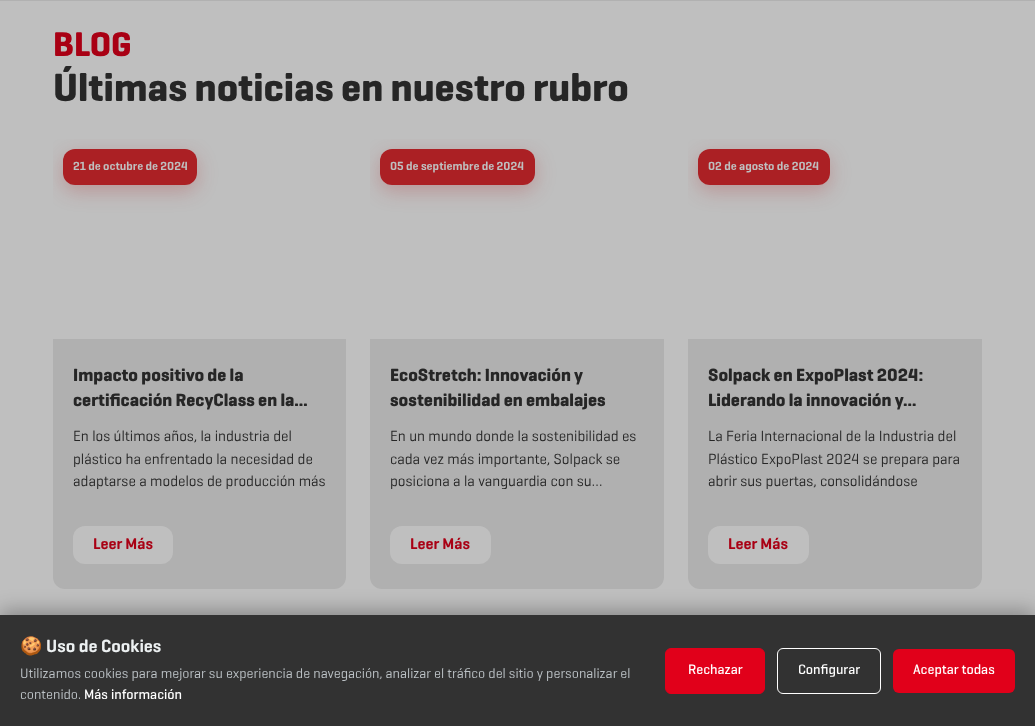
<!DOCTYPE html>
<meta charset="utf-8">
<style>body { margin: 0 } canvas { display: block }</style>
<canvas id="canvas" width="1035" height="726"></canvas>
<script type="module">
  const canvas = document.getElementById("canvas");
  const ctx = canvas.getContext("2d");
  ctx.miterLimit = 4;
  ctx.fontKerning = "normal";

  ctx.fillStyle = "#bfbfbf";
  ctx.fillRect(0, 0, 1035, 726);
  ctx.fillStyle = "#b1b1b1";
  ctx.fillRect(0, 0, 1035, 1);
  ctx.font = "bold 35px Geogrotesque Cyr";
  ctx.fillStyle = "#a90014";
  ctx.fillText("BLOG", 53, 56);
  ctx.font = "bold 40px Geogrotesque Cyr";
  ctx.fillStyle = "#262626";
  ctx.fillText("Últimas noticias en nuestro rubro", 53, 101);
  ctx.save();
  ctx.beginPath();
  ctx.rect(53, 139, 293, 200);
  ctx.clip();
  ctx.beginPath();
  ctx.moveTo(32, 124);
  ctx.lineTo(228, 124);
  ctx.lineTo(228, 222);
  ctx.lineTo(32, 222);
  ctx.closePath();
  ctx.moveTo(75, 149);
  ctx.lineTo(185, 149);
  ctx.bezierCurveTo(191.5, 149, 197, 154.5, 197, 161);
  ctx.lineTo(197, 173);
  ctx.bezierCurveTo(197, 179.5, 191.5, 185, 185, 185);
  ctx.lineTo(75, 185);
  ctx.bezierCurveTo(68.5, 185, 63, 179.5, 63, 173);
  ctx.lineTo(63, 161);
  ctx.bezierCurveTo(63, 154.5, 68.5, 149, 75, 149);
  ctx.closePath();
  ctx.clip("evenodd");
  ctx.fillStyle = "rgba(170, 23, 27, 0.25)";
  ctx.filter = "blur(10px)";
  ctx.beginPath();
  ctx.roundRect(63, 155, 134, 36, 12);
  ctx.fill();
  ctx.filter = "none";
  ctx.restore();
  ctx.fillStyle = "rgba(170, 23, 27, 0.95)";
  ctx.beginPath();
  ctx.roundRect(63, 149, 134, 36, 12);
  ctx.fill();
  ctx.font = "600 12px Geogrotesque Cyr";
  ctx.fillStyle = "#bfbfbf";
  ctx.fillText("21 de octubre de 2024", 73, 170);
  ctx.fillStyle = "#b0b0b0";
  ctx.beginPath();
  ctx.roundRect(53, 339, 293, 250, [0, 0, 12, 12]);
  ctx.fill();
  ctx.font = "bold 18px Geogrotesque Cyr";
  ctx.fillStyle = "#262626";
  ctx.fillText("Impacto positivo de la", 73, 381);
  ctx.fillText("certificación RecyClass en la…", 73, 406);
  ctx.font = "15px Geogrotesque Cyr";
  ctx.fillText("En los últimos años, la industria del", 73, 441);
  ctx.fillText("plástico ha enfrentado la necesidad de", 73, 464);
  ctx.fillText("adaptarse a modelos de producción más", 73, 486);
  ctx.fillStyle = "#bfbfbf";
  ctx.beginPath();
  ctx.roundRect(73, 526, 100, 38, 12);
  ctx.fill();
  ctx.font = "600 16px Geogrotesque Cyr";
  ctx.fillStyle = "#a90014";
  ctx.fillText("Leer Más", 93, 549);
  ctx.save();
  ctx.beginPath();
  ctx.rect(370, 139, 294, 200);
  ctx.clip();
  ctx.beginPath();
  ctx.moveTo(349, 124);
  ctx.lineTo(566, 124);
  ctx.lineTo(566, 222);
  ctx.lineTo(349, 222);
  ctx.closePath();
  ctx.moveTo(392, 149);
  ctx.lineTo(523, 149);
  ctx.bezierCurveTo(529.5, 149, 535, 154.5, 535, 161);
  ctx.lineTo(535, 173);
  ctx.bezierCurveTo(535, 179.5, 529.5, 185, 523, 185);
  ctx.lineTo(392, 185);
  ctx.bezierCurveTo(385.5, 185, 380, 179.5, 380, 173);
  ctx.lineTo(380, 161);
  ctx.bezierCurveTo(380, 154.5, 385.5, 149, 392, 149);
  ctx.closePath();
  ctx.clip("evenodd");
  ctx.fillStyle = "rgba(170, 23, 27, 0.25)";
  ctx.filter = "blur(10px)";
  ctx.beginPath();
  ctx.roundRect(380, 155, 155, 36, 12);
  ctx.fill();
  ctx.filter = "none";
  ctx.restore();
  ctx.fillStyle = "rgba(170, 23, 27, 0.95)";
  ctx.beginPath();
  ctx.roundRect(380, 149, 155, 36, 12);
  ctx.fill();
  ctx.font = "600 12px Geogrotesque Cyr";
  ctx.fillStyle = "#bfbfbf";
  ctx.fillText("05 de septiembre de 2024", 390, 170);
  ctx.fillStyle = "#b0b0b0";
  ctx.beginPath();
  ctx.roundRect(370, 339, 294, 250, [0, 0, 12, 12]);
  ctx.fill();
  ctx.font = "bold 18px Geogrotesque Cyr";
  ctx.fillStyle = "#262626";
  ctx.fillText("EcoStretch: Innovación y", 390, 381);
  ctx.fillText("sostenibilidad en embalajes", 390, 406);
  ctx.font = "15px Geogrotesque Cyr";
  ctx.fillText("En un mundo donde la sostenibilidad es", 390, 441);
  ctx.fillText("cada vez más importante, Solpack se", 390, 464);
  ctx.fillText("posiciona a la vanguardia con su…", 390, 486);
  ctx.fillStyle = "#bfbfbf";
  ctx.beginPath();
  ctx.roundRect(390, 526, 101, 38, 12);
  ctx.fill();
  ctx.font = "600 16px Geogrotesque Cyr";
  ctx.fillStyle = "#a90014";
  ctx.fillText("Leer Más", 410, 549);
  ctx.save();
  ctx.beginPath();
  ctx.rect(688, 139, 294, 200);
  ctx.clip();
  ctx.beginPath();
  ctx.moveTo(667, 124);
  ctx.lineTo(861, 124);
  ctx.lineTo(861, 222);
  ctx.lineTo(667, 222);
  ctx.closePath();
  ctx.moveTo(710, 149);
  ctx.lineTo(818, 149);
  ctx.bezierCurveTo(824.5, 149, 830, 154.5, 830, 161);
  ctx.lineTo(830, 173);
  ctx.bezierCurveTo(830, 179.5, 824.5, 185, 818, 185);
  ctx.lineTo(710, 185);
  ctx.bezierCurveTo(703.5, 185, 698, 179.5, 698, 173);
  ctx.lineTo(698, 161);
  ctx.bezierCurveTo(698, 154.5, 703.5, 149, 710, 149);
  ctx.closePath();
  ctx.clip("evenodd");
  ctx.fillStyle = "rgba(170, 23, 27, 0.25)";
  ctx.filter = "blur(10px)";
  ctx.beginPath();
  ctx.roundRect(698, 155, 132, 36, 12);
  ctx.fill();
  ctx.filter = "none";
  ctx.restore();
  ctx.fillStyle = "rgba(170, 23, 27, 0.95)";
  ctx.beginPath();
  ctx.roundRect(698, 149, 132, 36, 12);
  ctx.fill();
  ctx.font = "600 12px Geogrotesque Cyr";
  ctx.fillStyle = "#bfbfbf";
  ctx.fillText("02 de agosto de 2024", 708, 170);
  ctx.fillStyle = "#b0b0b0";
  ctx.beginPath();
  ctx.roundRect(688, 339, 294, 250, [0, 0, 12, 12]);
  ctx.fill();
  ctx.font = "bold 18px Geogrotesque Cyr";
  ctx.fillStyle = "#262626";
  ctx.fillText("Solpack en ExpoPlast 2024:", 708, 381);
  ctx.fillText("Liderando la innovación y…", 708, 406);
  ctx.font = "15px Geogrotesque Cyr";
  ctx.fillText("La Feria Internacional de la Industria del", 708, 441);
  ctx.fillText("Plástico ExpoPlast 2024 se prepara para", 708, 464);
  ctx.fillText("abrir sus puertas, consolidándose", 708, 486);
  ctx.fillStyle = "#bfbfbf";
  ctx.beginPath();
  ctx.roundRect(708, 526, 101, 38, 12);
  ctx.fill();
  ctx.font = "600 16px Geogrotesque Cyr";
  ctx.fillStyle = "#a90014";
  ctx.fillText("Leer Más", 728, 549);
  ctx.fillStyle = "rgba(0, 0, 0, 0.3)";
  ctx.filter = "blur(10px)";
  ctx.beginPath();
  ctx.rect(0, 611, 1035, 111);
  ctx.fill();
  ctx.filter = "none";
  ctx.fillStyle = "#323232";
  ctx.fillRect(0, 615, 1035, 111);
  ctx.font = "bold 18px Noto Color Emoji";
  ctx.fillStyle = "#ecf0f1";
  ctx.fillText("🍪", 20, 652);
  ctx.font = "600 18px Geogrotesque Cyr";
  ctx.fillText("Uso de Cookies", 46, 652);
  ctx.font = "14px Geogrotesque Cyr";
  ctx.fillStyle = "#bdc3c7";
  ctx.fillText("Utilizamos cookies para mejorar su experiencia de navegación, analizar el tráfico del sitio y personalizar el", 20, 678);
  ctx.fillText("contenido.", 20, 699);
  ctx.font = "500 14px Geogrotesque Cyr";
  ctx.fillStyle = "#ffffff";
  ctx.fillText("Más información", 84, 699);
  ctx.fillStyle = "#e1001a";
  ctx.beginPath();
  ctx.roundRect(665.5, 648.5, 99, 45, 5.5);
  ctx.fill();
  ctx.strokeStyle = "#e1001a";
  ctx.stroke();
  ctx.fillStyle = "#ffffff";
  ctx.fillText("Rechazar", 688, 674);
  ctx.beginPath();
  ctx.roundRect(777.5, 648.5, 103, 45, 5.5);
  ctx.strokeStyle = "#ffffff";
  ctx.stroke();
  ctx.fillText("Configurar", 798, 674);
  ctx.fillStyle = "#e1001a";
  ctx.beginPath();
  ctx.roundRect(893, 649, 122, 44, 6);
  ctx.fill();
  ctx.fillStyle = "#ffffff";
  ctx.fillText("Aceptar todas", 913, 674);
</script>
